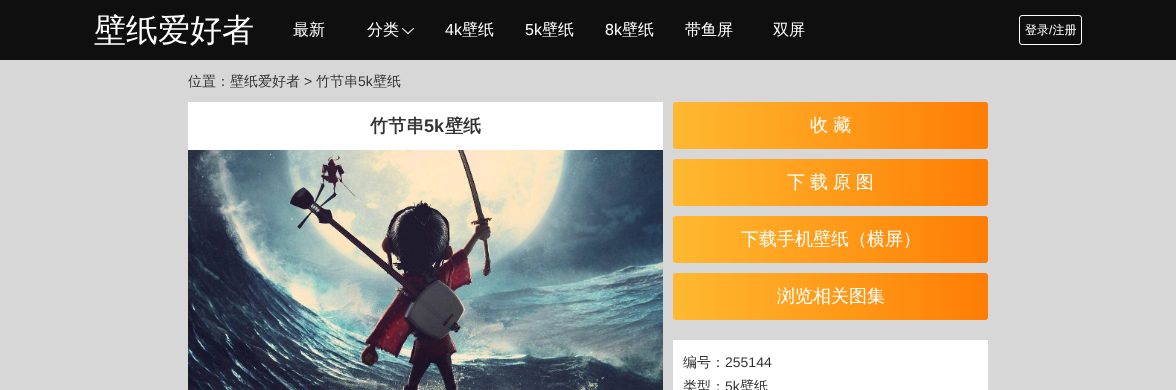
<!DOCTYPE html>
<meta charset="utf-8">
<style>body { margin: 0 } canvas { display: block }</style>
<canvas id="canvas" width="1176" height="390"></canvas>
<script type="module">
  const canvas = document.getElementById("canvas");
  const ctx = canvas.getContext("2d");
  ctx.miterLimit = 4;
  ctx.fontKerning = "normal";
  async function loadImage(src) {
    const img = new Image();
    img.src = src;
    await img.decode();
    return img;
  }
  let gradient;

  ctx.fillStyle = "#d7d7d7";
  ctx.fillRect(0, 0, 1176, 390);
  ctx.fillStyle = "#0f0f0f";
  ctx.fillRect(0, 0, 1176, 60);
  ctx.font = "500 32px WenQuanYi Zen Hei";
  ctx.fillStyle = "#ffffff";
  ctx.fillText("壁纸爱好者", 94, 41);
  ctx.font = "500 16px WenQuanYi Zen Hei";
  ctx.fillText("最新", 293, 35);
  ctx.fillText("分类", 367, 35);
  ctx.drawImage(await loadImage("img1.png"), 402, 28, 12, 6);
  ctx.font = "16px Liberation Sans";
  ctx.fillText("4k", 445, 35);
  ctx.font = "500 16px WenQuanYi Zen Hei";
  ctx.fillText("壁纸", 462, 35);
  ctx.font = "16px Liberation Sans";
  ctx.fillText("5k", 525, 35);
  ctx.font = "500 16px WenQuanYi Zen Hei";
  ctx.fillText("壁纸", 542, 35);
  ctx.font = "16px Liberation Sans";
  ctx.fillText("8k", 605, 35);
  ctx.font = "500 16px WenQuanYi Zen Hei";
  ctx.fillText("壁纸", 622, 35);
  ctx.fillText("带鱼屏", 685, 35);
  ctx.fillText("双屏", 773, 35);
  ctx.beginPath();
  ctx.roundRect(1019.5, 15.5, 62, 29, 2.5);
  ctx.strokeStyle = "#ffffff";
  ctx.stroke();
  ctx.font = "500 12px WenQuanYi Zen Hei";
  ctx.fillText("登录 注册", 1025, 34);
  ctx.font = "12px Liberation Sans";
  ctx.fillText("/", 1049, 34);
  ctx.font = "500 14px WenQuanYi Zen Hei";
  ctx.fillStyle = "#333333";
  ctx.fillText("位置：壁纸爱好者", 188, 86);
  ctx.font = "14px Liberation Sans";
  ctx.fillText(">", 304, 86);
  ctx.font = "500 14px WenQuanYi Zen Hei";
  ctx.fillText("竹节串", 316, 86);
  ctx.font = "14px Liberation Sans";
  ctx.fillText("5k", 358, 86);
  ctx.font = "500 14px WenQuanYi Zen Hei";
  ctx.fillText("壁纸", 373, 86);
  ctx.fillStyle = "#ffffff";
  ctx.fillRect(188, 102, 475, 48);
  ctx.font = "bold 18px WenQuanYi Zen Hei";
  ctx.fillStyle = "#333333";
  ctx.fillText("竹节串", 370, 132);
  ctx.font = "bold 18px Liberation Sans";
  ctx.fillText("5k", 424, 132);
  ctx.font = "bold 18px WenQuanYi Zen Hei";
  ctx.fillText("壁纸", 445, 132);
  ctx.drawImage(await loadImage("img2.png"), 188, 150, 475, 240);
  gradient = ctx.createLinearGradient(673, 126, 988, 125);
  gradient.addColorStop(0, "#ffb930");
  gradient.addColorStop(1, "#ff7d04");
  ctx.fillStyle = gradient;
  ctx.beginPath();
  ctx.roundRect(673, 102, 315, 47, 3);
  ctx.fill();
  ctx.wordSpacing = "-0.5px";
  ctx.font = "500 18px WenQuanYi Zen Hei";
  ctx.fillStyle = "#ffffff";
  ctx.fillText("收 藏", 810, 131);
  gradient = ctx.createLinearGradient(673, 183, 988, 183);
  gradient.addColorStop(0, "#ffb930");
  gradient.addColorStop(1, "#ff7d04");
  ctx.fillStyle = gradient;
  ctx.beginPath();
  ctx.roundRect(673, 159, 315, 47, 3);
  ctx.fill();
  ctx.fillStyle = "#ffffff";
  ctx.fillText("下 载 原 图", 787, 188);
  gradient = ctx.createLinearGradient(673, 240, 988, 240);
  gradient.addColorStop(0, "#ffb930");
  gradient.addColorStop(1, "#ff7d04");
  ctx.fillStyle = gradient;
  ctx.beginPath();
  ctx.roundRect(673, 216, 315, 47, 3);
  ctx.fill();
  ctx.wordSpacing = "0px";
  ctx.fillStyle = "#ffffff";
  ctx.fillText("下载手机壁纸（横屏）", 741, 245);
  gradient = ctx.createLinearGradient(673, 297, 988, 297);
  gradient.addColorStop(0, "#ffb930");
  gradient.addColorStop(1, "#ff7d04");
  ctx.fillStyle = gradient;
  ctx.beginPath();
  ctx.roundRect(673, 273, 315, 47, 3);
  ctx.fill();
  ctx.fillStyle = "#ffffff";
  ctx.fillText("浏览相关图集", 777, 302);
  ctx.fillRect(673, 340, 315, 50);
  ctx.font = "500 14px WenQuanYi Zen Hei";
  ctx.fillStyle = "#333333";
  ctx.fillText("编号：", 683, 367);
  ctx.font = "14px Liberation Sans";
  ctx.fillText("255144", 725, 367);
  ctx.font = "500 14px WenQuanYi Zen Hei";
  ctx.fillText("类型：", 683, 391);
  ctx.font = "14px Liberation Sans";
  ctx.fillText("5k", 725, 391);
  ctx.font = "500 14px WenQuanYi Zen Hei";
  ctx.fillText("壁纸", 740, 391);
</script>
